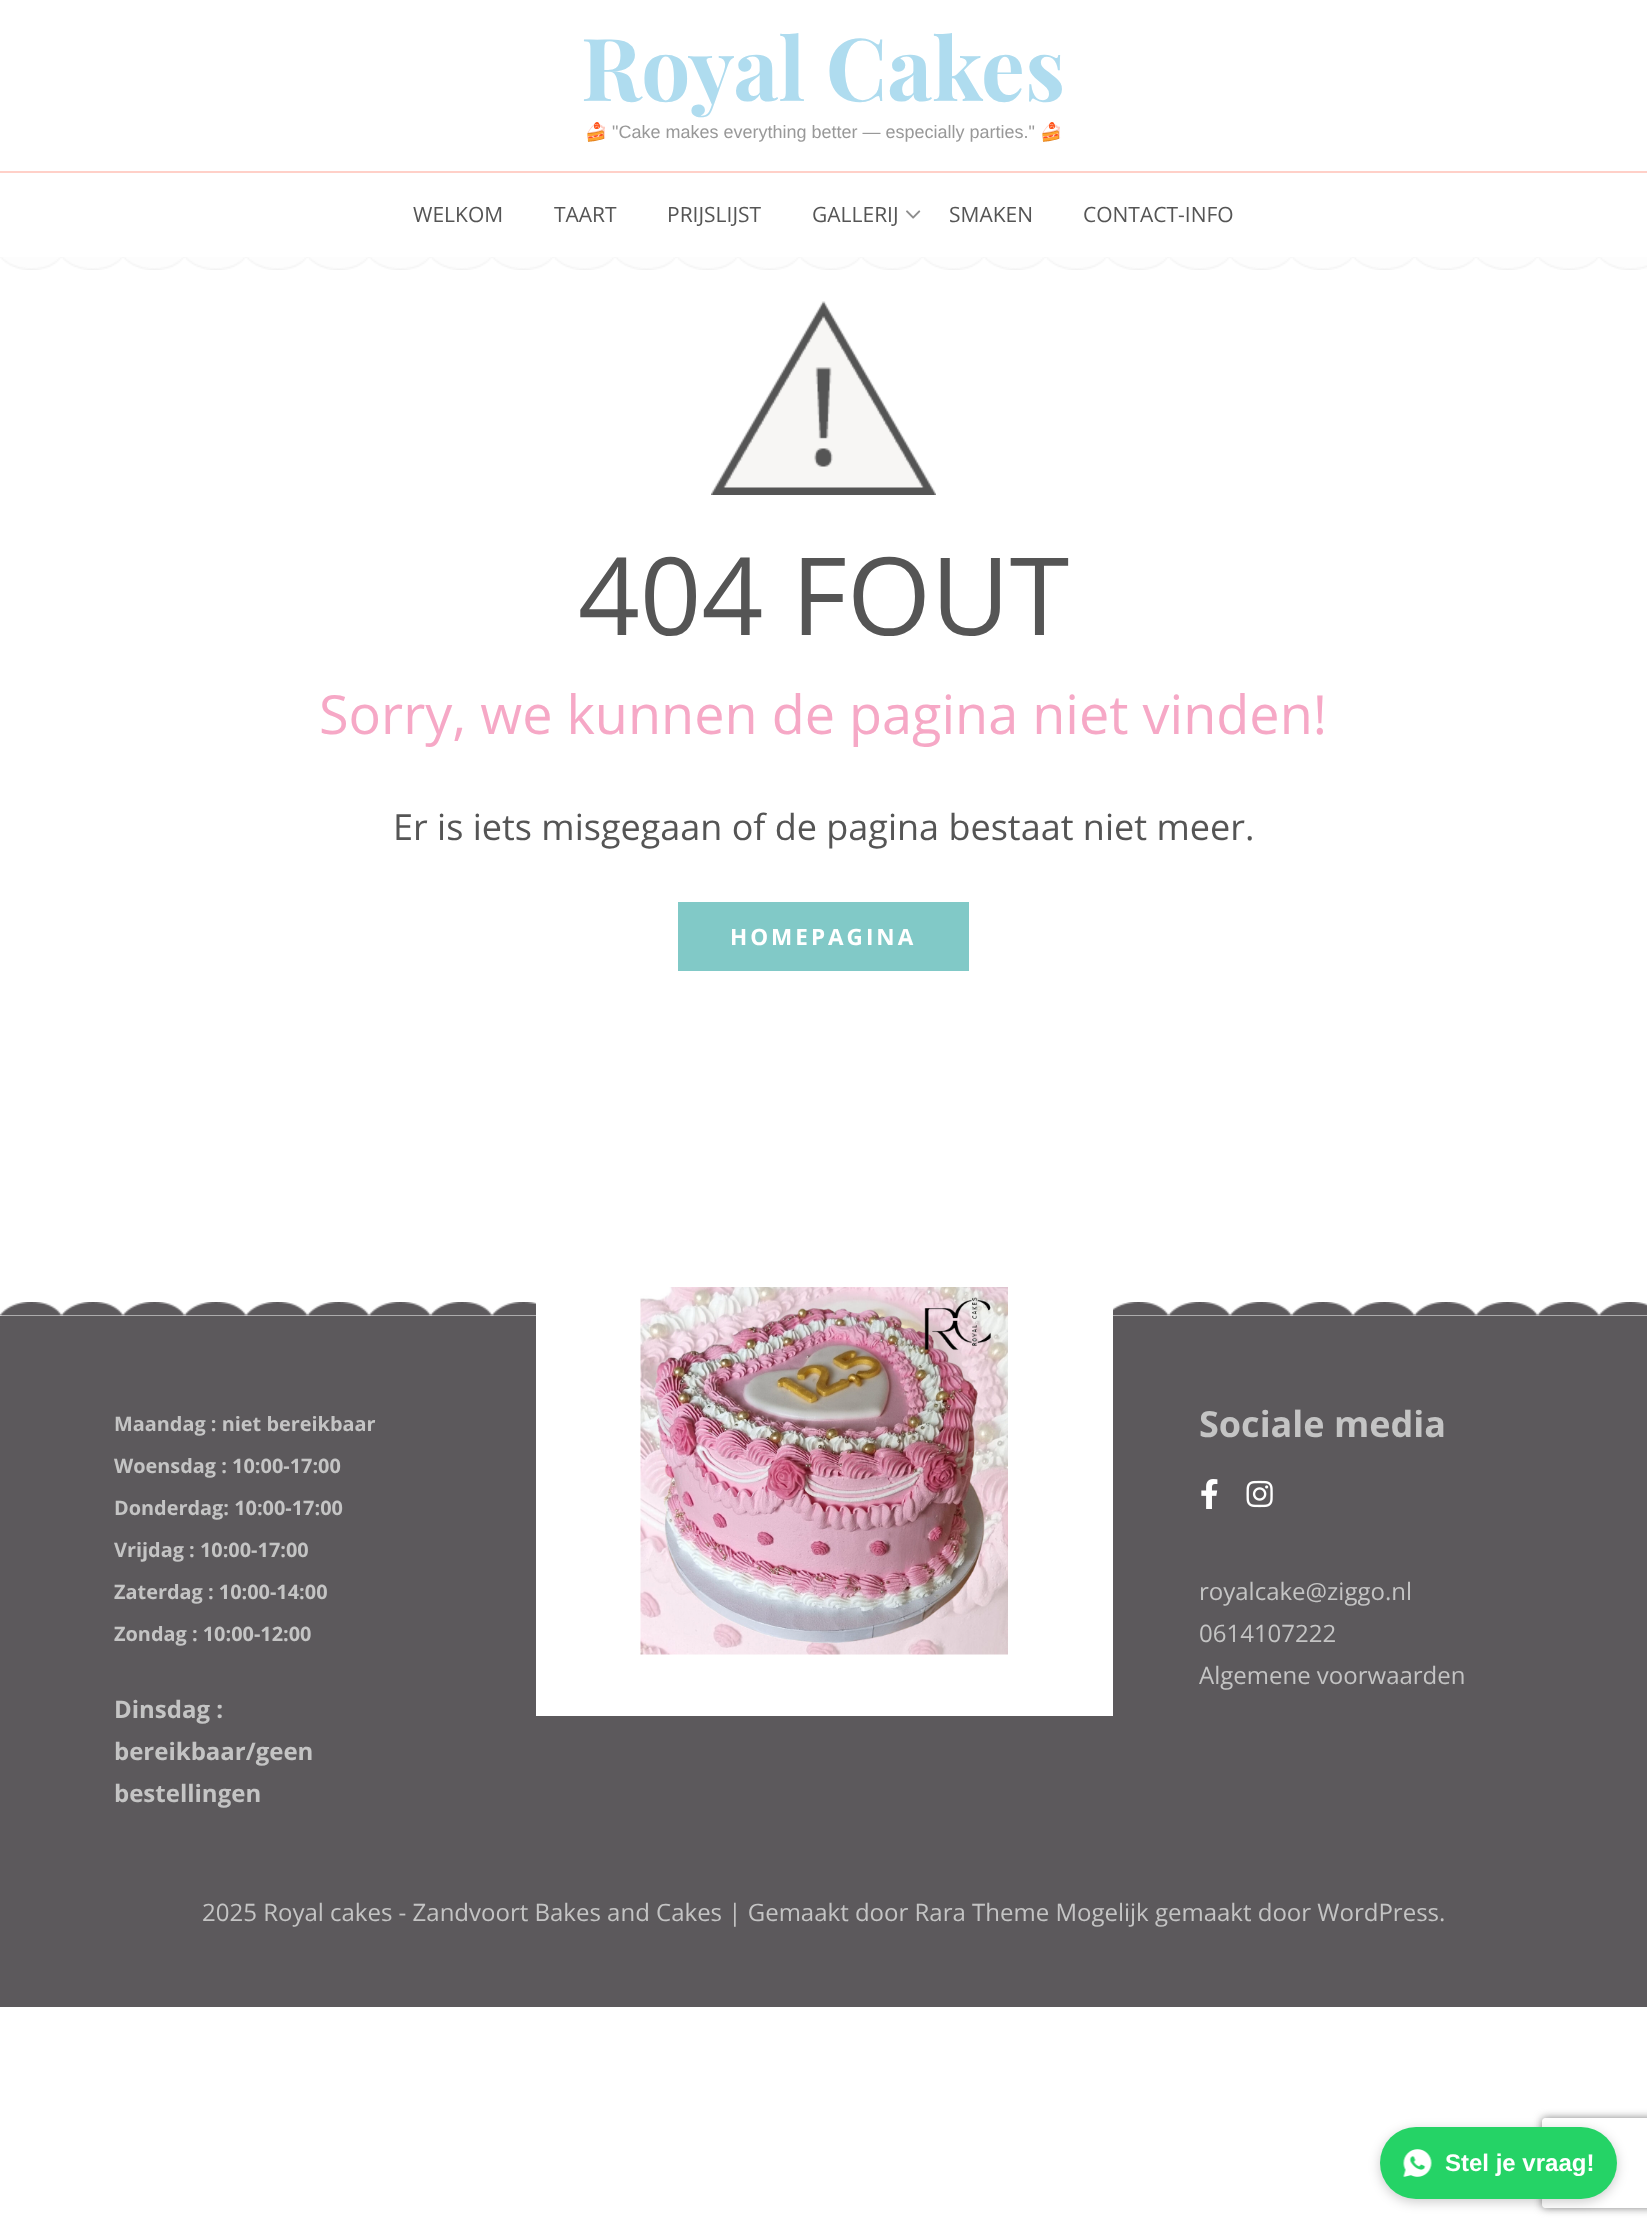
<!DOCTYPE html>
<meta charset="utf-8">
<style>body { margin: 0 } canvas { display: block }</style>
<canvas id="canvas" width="1647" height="2229"></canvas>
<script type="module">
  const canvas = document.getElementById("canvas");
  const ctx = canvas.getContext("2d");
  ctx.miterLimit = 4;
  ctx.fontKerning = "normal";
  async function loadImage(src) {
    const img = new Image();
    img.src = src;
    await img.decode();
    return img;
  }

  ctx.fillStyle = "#ffffff";
  ctx.fillRect(0, 0, 1647, 2229);
  ctx.font = "bold 87px Playfair Display";
  ctx.fillStyle = "#afdcef";
  ctx.fillText("Royal Cakes", 581, 101);
  ctx.font = "18px Noto Color Emoji";
  ctx.fillStyle = "#999999";
  ctx.fillText("🍰", 585, 138);
  ctx.font = "18px Liberation Sans";
  ctx.fillText("\"Cake makes everything better — especially parties.\"", 612, 138);
  ctx.font = "18px Noto Color Emoji";
  ctx.fillText("🍰", 1040, 138);
  ctx.fillStyle = "#ffd0c8";
  ctx.fillRect(0, 171, 1647, 2);
  ctx.font = "21px Open Sans";
  ctx.fillStyle = "#555555";
  ctx.fillText("WELKOM", 413, 222);
  ctx.fillText("TAART", 554, 222);
  ctx.fillText("PRIJSLIJST", 667, 222);
  ctx.fillText("GALLERIJ", 812, 222);
  ctx.drawImage(await loadImage("img1.png"), 906, 210, 15, 9);
  ctx.fillText("SMAKEN", 949, 222);
  ctx.fillText("CONTACT-INFO", 1083, 222);
  ctx.drawImage(await loadImage("img2.png"), 0, 257, 1647, 13);
  ctx.drawImage(await loadImage("img3.png"), 711, 301, 225, 194);
  ctx.font = "108px Open Sans";
  ctx.fillText("404 FOUT", 578, 635);
  ctx.font = "54px Open Sans";
  ctx.fillStyle = "#f6a8c6";
  ctx.fillText("Sorry, we kunnen de pagina niet vinden!", 319, 734);
  ctx.font = "36px Open Sans";
  ctx.fillStyle = "#555555";
  ctx.fillText("Er is iets misgegaan of de pagina bestaat niet meer.", 393, 840);
  ctx.fillStyle = "#81c9c7";
  ctx.fillRect(678, 902, 291, 69);
  ctx.letterSpacing = "3px";
  ctx.font = "bold 22.5px Open Sans";
  ctx.fillStyle = "#ffffff";
  ctx.fillText("HOMEPAGINA", 730, 945);
  ctx.fillStyle = "#5c595c";
  ctx.fillRect(0, 1316, 1647, 691);
  ctx.drawImage(await loadImage("img4.png"), 0, 1302, 1647, 14);
  ctx.letterSpacing = "0px";
  ctx.font = "bold 19.9px Open Sans";
  ctx.fillStyle = "#c4c4c4";
  ctx.fillText("Maandag : niet bereikbaar", 114, 1431);
  ctx.fillText("Woensdag : 10:00-17:00", 114, 1473);
  ctx.fillText("Donderdag: 10:00-17:00", 114, 1515);
  ctx.fillText("Vrijdag : 10:00-17:00", 114, 1557);
  ctx.fillText("Zaterdag : 10:00-14:00", 114, 1599);
  ctx.fillText("Zondag : 10:00-12:00", 114, 1641);
  ctx.font = "bold 24px Open Sans";
  ctx.fillText("Dinsdag :", 114, 1718);
  ctx.fillText("bereikbaar/geen", 114, 1760);
  ctx.fillText("bestellingen", 114, 1802);
  ctx.fillStyle = "#ffffff";
  ctx.fillRect(536, 1302, 577, 414);
  ctx.drawImage(await loadImage("img5.png"), 640, 1287, 368, 368);
  ctx.font = "bold 36px Open Sans";
  ctx.fillStyle = "#c4c4c4";
  ctx.fillText("Sociale media", 1199, 1437);
  ctx.drawImage(await loadImage("img6.png"), 1201, 1479, 17, 30);
  ctx.drawImage(await loadImage("img7.png"), 1246, 1480, 27, 28);
  ctx.font = "24px Open Sans";
  ctx.fillText("royalcake@ziggo.nl", 1199, 1600);
  ctx.fillText("0614107222", 1199, 1642);
  ctx.fillText("Algemene voorwaarden", 1199, 1684);
  ctx.fillText("2025 Royal cakes - Zandvoort Bakes and Cakes | Gemaakt door Rara Theme Mogelijk gemaakt door WordPress.", 202, 1921);
  ctx.save();
  ctx.beginPath();
  ctx.moveTo(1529, 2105);
  ctx.lineTo(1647, 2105);
  ctx.lineTo(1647, 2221);
  ctx.lineTo(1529, 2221);
  ctx.closePath();
  ctx.moveTo(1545, 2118);
  ctx.lineTo(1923, 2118);
  ctx.bezierCurveTo(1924.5, 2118, 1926, 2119.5, 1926, 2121);
  ctx.lineTo(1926, 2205);
  ctx.bezierCurveTo(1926, 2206.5, 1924.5, 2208, 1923, 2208);
  ctx.lineTo(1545, 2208);
  ctx.bezierCurveTo(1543.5, 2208, 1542, 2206.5, 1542, 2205);
  ctx.lineTo(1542, 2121);
  ctx.bezierCurveTo(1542, 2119.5, 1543.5, 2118, 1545, 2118);
  ctx.closePath();
  ctx.clip("evenodd");
  ctx.fillStyle = "#808080";
  ctx.filter = "blur(4px)";
  ctx.beginPath();
  ctx.roundRect(1542, 2118, 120, 90, 3);
  ctx.fill();
  ctx.filter = "none";
  ctx.restore();
  ctx.fillStyle = "rgba(0, 0, 0, 0.2)";
  ctx.filter = "blur(6px)";
  ctx.beginPath();
  ctx.roundRect(1380, 2130, 237, 72, 36);
  ctx.fill();
  ctx.filter = "none";
  ctx.fillStyle = "#25d366";
  ctx.beginPath();
  ctx.roundRect(1380, 2127, 237, 72, 36);
  ctx.fill();
  ctx.drawImage(await loadImage("img8.png"), 1403, 2149, 29, 28);
  ctx.font = "bold 24px Liberation Sans";
  ctx.fillStyle = "#ffffff";
  ctx.fillText("Stel je vraag!", 1445, 2171);
</script>
